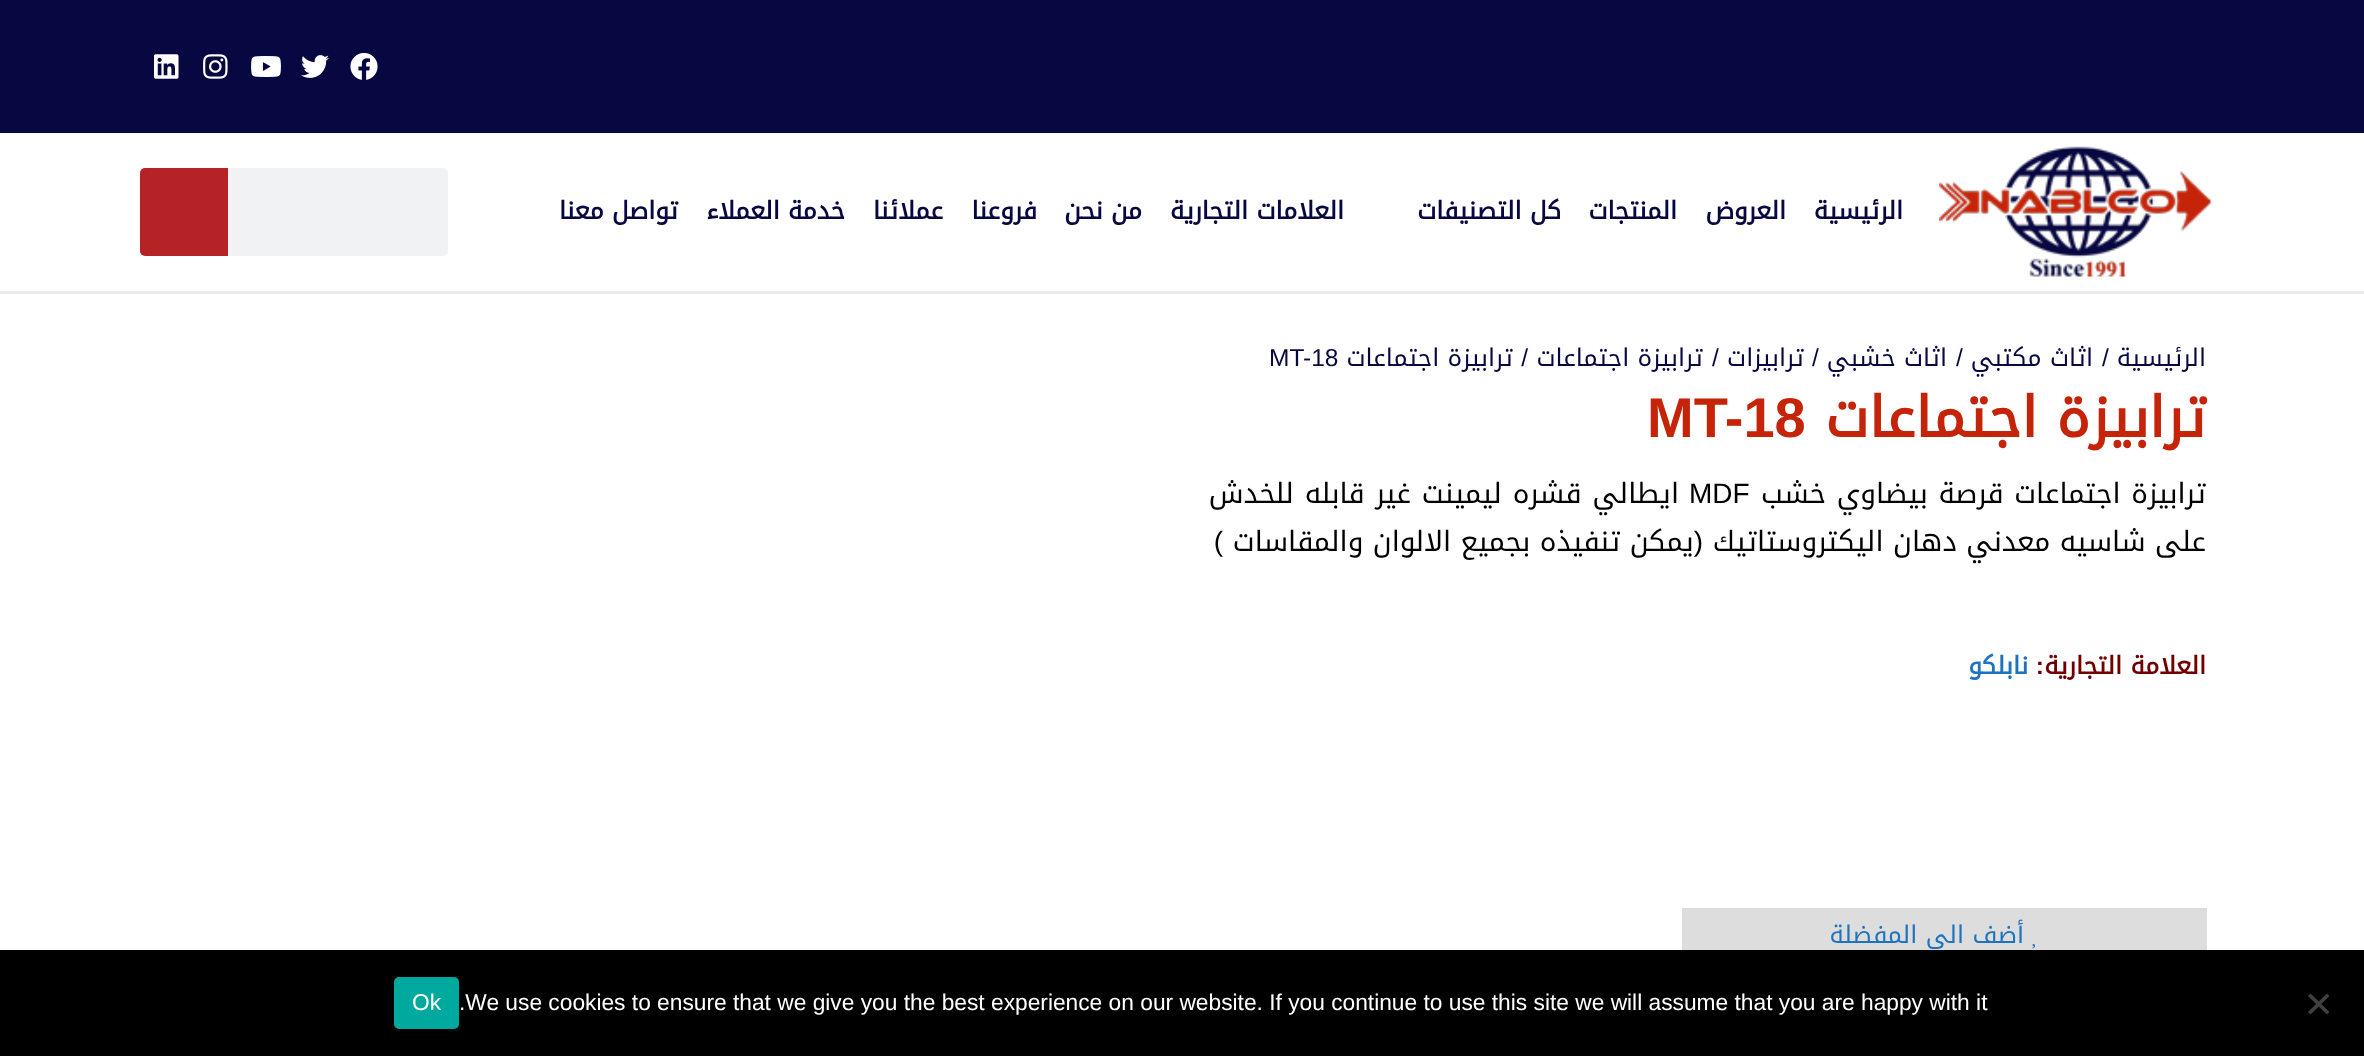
<!DOCTYPE html>
<meta charset="utf-8">
<style>body { margin: 0 } canvas { display: block }</style>
<canvas id="canvas" width="2364" height="1056"></canvas>
<script type="module">
  const canvas = document.getElementById("canvas");
  const ctx = canvas.getContext("2d");
  ctx.miterLimit = 4;
  ctx.fontKerning = "normal";
  async function loadImage(src) {
    const img = new Image();
    img.src = src;
    await img.decode();
    return img;
  }

  ctx.fillStyle = "#ebebeb";
  ctx.fillRect(0, 0, 2364, 1056);
  ctx.fillStyle = "#070742";
  ctx.fillRect(0, 0, 2364, 133);
  ctx.drawImage(await loadImage("img1.png"), 350, 53, 28, 27);
  ctx.drawImage(await loadImage("img2.png"), 301, 55, 28, 23);
  ctx.drawImage(await loadImage("img3.png"), 251, 56, 30, 21);
  ctx.drawImage(await loadImage("img4.png"), 203, 54, 25, 25);
  ctx.drawImage(await loadImage("img5.png"), 154, 54, 25, 25);
  ctx.fillStyle = "#ffffff";
  ctx.fillRect(0, 133, 2364, 158);
  ctx.drawImage(await loadImage("img6.png"), 1939, 146, 273, 132);
  ctx.direction = "rtl";
  ctx.font = "bold 24.5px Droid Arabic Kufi";
  ctx.fillStyle = "#070742";
  ctx.fillText("الرئيسية", 1903, 219);
  ctx.fillText("العروض", 1786, 219);
  ctx.fillText("المنتجات", 1677, 219);
  ctx.fillText("كل التصنيفات", 1561, 219);
  ctx.fillText("العلامات التجارية", 1344, 219);
  ctx.fillText("من نحن", 1142, 219);
  ctx.fillText("فروعنا", 1037, 219);
  ctx.fillText("عملائنا", 943, 219);
  ctx.fillText("خدمة العملاء", 845, 219);
  ctx.fillText("تواصل معنا", 678, 219);
  ctx.fillStyle = "#f1f2f3";
  ctx.beginPath();
  ctx.roundRect(140, 168, 308, 88, 5);
  ctx.fill();
  ctx.fillStyle = "#b52327";
  ctx.beginPath();
  ctx.roundRect(140, 168, 88, 88, [5, 0, 0, 5]);
  ctx.fill();
  ctx.fillStyle = "#ffffff";
  ctx.fillRect(0, 294, 2364, 656);
  ctx.font = "24.5px Droid Arabic Kufi";
  ctx.fillStyle = "#070742";
  ctx.fillText("الرئيسية", 2206, 366);
  ctx.direction = "ltr";
  ctx.font = "24.5px Liberation Sans";
  ctx.fillText("/", 2102, 366);
  ctx.direction = "rtl";
  ctx.font = "24.5px Droid Arabic Kufi";
  ctx.fillText("اثاث مكتبي", 2093, 366);
  ctx.direction = "ltr";
  ctx.font = "24.5px Liberation Sans";
  ctx.fillText("/", 1956, 366);
  ctx.direction = "rtl";
  ctx.font = "24.5px Droid Arabic Kufi";
  ctx.fillText("اثاث خشبي", 1947, 366);
  ctx.direction = "ltr";
  ctx.font = "24.5px Liberation Sans";
  ctx.fillText("/", 1812, 366);
  ctx.direction = "rtl";
  ctx.font = "24.5px Droid Arabic Kufi";
  ctx.fillText("ترابيزات", 1804, 366);
  ctx.direction = "ltr";
  ctx.font = "24.5px Liberation Sans";
  ctx.fillText("/", 1712, 366);
  ctx.direction = "rtl";
  ctx.font = "24.5px Droid Arabic Kufi";
  ctx.fillText("ترابيزة اجتماعات", 1703, 366);
  ctx.font = "24.5px Liberation Sans";
  ctx.fillText("/", 1528, 366);
  ctx.font = "24.5px Droid Arabic Kufi";
  ctx.fillText("ترابيزة اجتماعات", 1513, 366);
  ctx.direction = "ltr";
  ctx.font = "24.5px Liberation Sans";
  ctx.fillText("MT-18", 1269, 366);
  ctx.direction = "rtl";
  ctx.font = "bold 56px Droid Arabic Kufi";
  ctx.fillStyle = "#c52409";
  ctx.fillText("ترابيزة اجتماعات", 2206, 437);
  ctx.direction = "ltr";
  ctx.font = "bold 56px Liberation Sans";
  ctx.fillText("MT-18", 1647, 437);
  ctx.wordSpacing = "1.25px";
  ctx.direction = "rtl";
  ctx.font = "28px Droid Arabic Kufi";
  ctx.fillStyle = "#000000";
  ctx.fillText("ترابيزة اجتماعات قرصة بيضاوي خشب", 2206, 503);
  ctx.wordSpacing = "0px";
  ctx.direction = "ltr";
  ctx.font = "28px Liberation Sans";
  ctx.fillText("MDF", 1689, 503);
  ctx.wordSpacing = "1.25px";
  ctx.direction = "rtl";
  ctx.font = "28px Droid Arabic Kufi";
  ctx.fillText("ايطالي قشره ليمينت غير قابله للخدش", 1679, 503);
  ctx.wordSpacing = "0px";
  ctx.fillText("على شاسيه معدني دهان اليكتروستاتيك", 2206, 551);
  ctx.font = "28px Liberation Sans";
  ctx.fillText("(", 1703, 551);
  ctx.font = "28px Droid Arabic Kufi";
  ctx.fillText("يمكن تنفيذه بجميع الالوان والمقاسات", 1694, 551);
  ctx.font = "28px Liberation Sans";
  ctx.fillText(")", 1223, 551);
  ctx.font = "bold 24.5px Droid Arabic Kufi";
  ctx.fillStyle = "#700000";
  ctx.fillText("العلامة التجارية", 2206, 674);
  ctx.font = "bold 24.5px Liberation Sans";
  ctx.fillText(":", 2044, 674);
  ctx.font = "bold 24.5px Droid Arabic Kufi";
  ctx.fillStyle = "#1e73be";
  ctx.fillText("نابلكو", 2028, 674);
  ctx.fillStyle = "#dddddd";
  ctx.fillRect(1682, 908, 525, 42);
  ctx.drawImage(await loadImage("img7.png"), 2032, 944, 3, 5);
  ctx.font = "24.5px Droid Arabic Kufi";
  ctx.fillStyle = "#1e73be";
  ctx.fillText("أضف الى المفضلة", 2024, 943);
  ctx.fillStyle = "#000000";
  ctx.fillRect(0, 950, 2364, 106);
  ctx.fillStyle = "#404040";
  ctx.beginPath();
  ctx.moveTo(2327, 993.5);
  ctx.lineTo(2329.5, 996);
  ctx.lineTo(2310.5, 1014.5);
  ctx.lineTo(2308, 1012);
  ctx.closePath();
  ctx.fill();
  ctx.beginPath();
  ctx.moveTo(2308, 996);
  ctx.lineTo(2310.5, 993.5);
  ctx.lineTo(2329.5, 1012);
  ctx.lineTo(2327, 1014.5);
  ctx.closePath();
  ctx.fill();
  ctx.direction = "ltr";
  ctx.font = "22.75px Liberation Sans";
  ctx.fillStyle = "#ffffff";
  ctx.fillText(".We use cookies to ensure that we give you the best experience on our website. If you continue to use this site we will assume that you are happy with it", 459, 1010);
  ctx.fillStyle = "#00a99d";
  ctx.beginPath();
  ctx.roundRect(394, 977, 65, 52, 5);
  ctx.fill();
  ctx.fillStyle = "#ffffff";
  ctx.fillText("Ok", 412, 1010);
</script>
